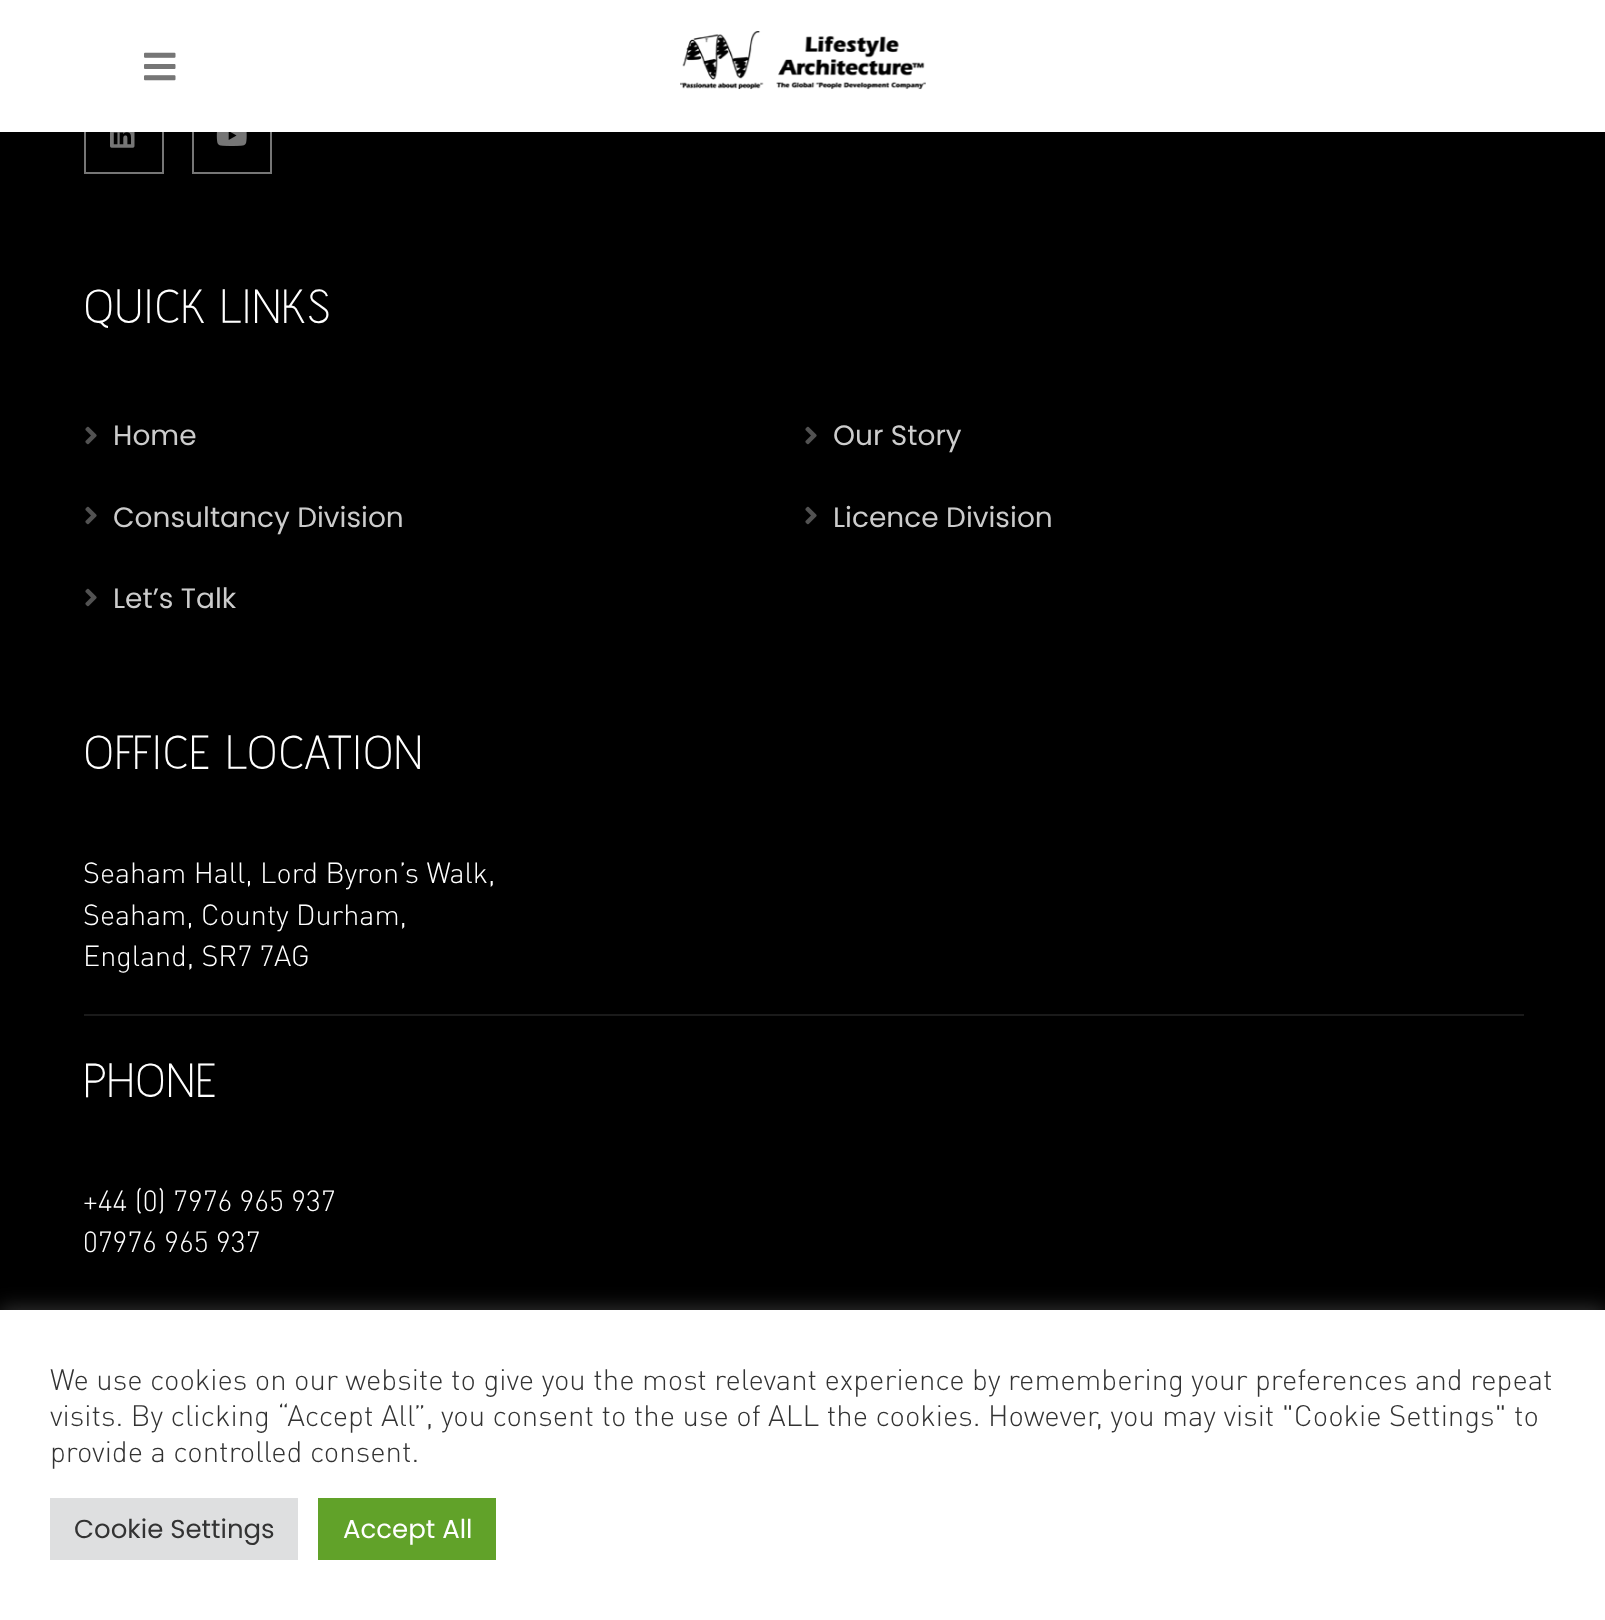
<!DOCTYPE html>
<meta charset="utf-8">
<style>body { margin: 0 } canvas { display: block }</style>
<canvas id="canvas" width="1605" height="1620"></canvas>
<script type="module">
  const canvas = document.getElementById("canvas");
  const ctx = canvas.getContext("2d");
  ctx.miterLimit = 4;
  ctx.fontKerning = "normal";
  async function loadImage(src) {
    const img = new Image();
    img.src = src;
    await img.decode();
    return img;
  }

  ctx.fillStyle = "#000000";
  ctx.fillRect(0, 0, 1605, 1620);
  ctx.strokeStyle = "#767676";
  ctx.lineWidth = 2;
  ctx.strokeRect(85, 95, 78, 78);
  ctx.strokeRect(193, 95, 78, 78);
  ctx.fillStyle = "#ffffff";
  ctx.fillRect(0, 0, 1605, 132);
  ctx.drawImage(await loadImage("img1.png"), 144, 52, 32, 29);
  ctx.drawImage(await loadImage("img2.png"), 680, 31, 246, 59);
  ctx.drawImage(await loadImage("img3.png"), 110, 132, 25, 16);
  ctx.drawImage(await loadImage("img4.png"), 216, 132, 31, 14);
  ctx.font = "60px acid";
  ctx.fillText("QUICK LINKS", 83, 323);
  ctx.drawImage(await loadImage("img5.png"), 85, 426, 12, 19);
  ctx.font = "28px Poppins";
  ctx.fillStyle = "#cccccc";
  ctx.fillText("Home", 113, 445);
  ctx.drawImage(await loadImage("img5.png"), 805, 426, 12, 19);
  ctx.fillText("Our Story", 833, 445);
  ctx.drawImage(await loadImage("img5.png"), 85, 506, 12, 19);
  ctx.fillText("Consultancy Division", 113, 527);
  ctx.drawImage(await loadImage("img5.png"), 805, 506, 12, 19);
  ctx.fillText("Licence Division", 833, 527);
  ctx.drawImage(await loadImage("img5.png"), 85, 588, 12, 19);
  ctx.fillText("Let’s Talk", 113, 608);
  ctx.fillStyle = "#1a1a1a";
  ctx.fillRect(84, 1014, 1440, 2);
  ctx.font = "60px acid";
  ctx.fillStyle = "#ffffff";
  ctx.fillText("OFFICE LOCATION", 83, 769);
  ctx.font = "300 28.75px DIN";
  ctx.fillText("Seaham Hall, Lord Byron’s Walk,", 83, 883);
  ctx.fillText("Seaham, County Durham,", 83, 925);
  ctx.fillText("England, SR7 7AG", 83, 966);
  ctx.font = "60px acid";
  ctx.fillText("PHONE", 83, 1097);
  ctx.font = "300 28.75px DIN";
  ctx.fillText("+44 (0) 7976 965 937", 83, 1211);
  ctx.fillText("07976 965 937", 83, 1252);
  ctx.fillStyle = "rgba(172, 171, 171, 0.3)";
  ctx.filter = "blur(10px)";
  ctx.beginPath();
  ctx.rect(0, 1308, 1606, 310);
  ctx.fill();
  ctx.filter = "none";
  ctx.fillStyle = "#ffffff";
  ctx.fillRect(0, 1310, 1605, 310);
  ctx.font = "300 29.33px DIN";
  ctx.fillStyle = "#333333";
  ctx.fillText("We use cookies on our website to give you the most relevant experience by remembering your preferences and repeat", 50, 1390);
  ctx.fillText("visits. By clicking “Accept All”, you consent to the use of ALL the cookies. However, you may visit \"Cookie Settings\" to", 50, 1426);
  ctx.fillText("provide a controlled consent.", 50, 1462);
  ctx.fillStyle = "#dedfe0";
  ctx.fillRect(50, 1498, 248, 62);
  ctx.font = "26px Poppins";
  ctx.fillStyle = "#333333";
  ctx.fillText("Cookie Settings", 74, 1538);
  ctx.fillStyle = "#61a229";
  ctx.fillRect(318, 1498, 178, 62);
  ctx.fillStyle = "#ffffff";
  ctx.fillText("Accept All", 343, 1538);
</script>
